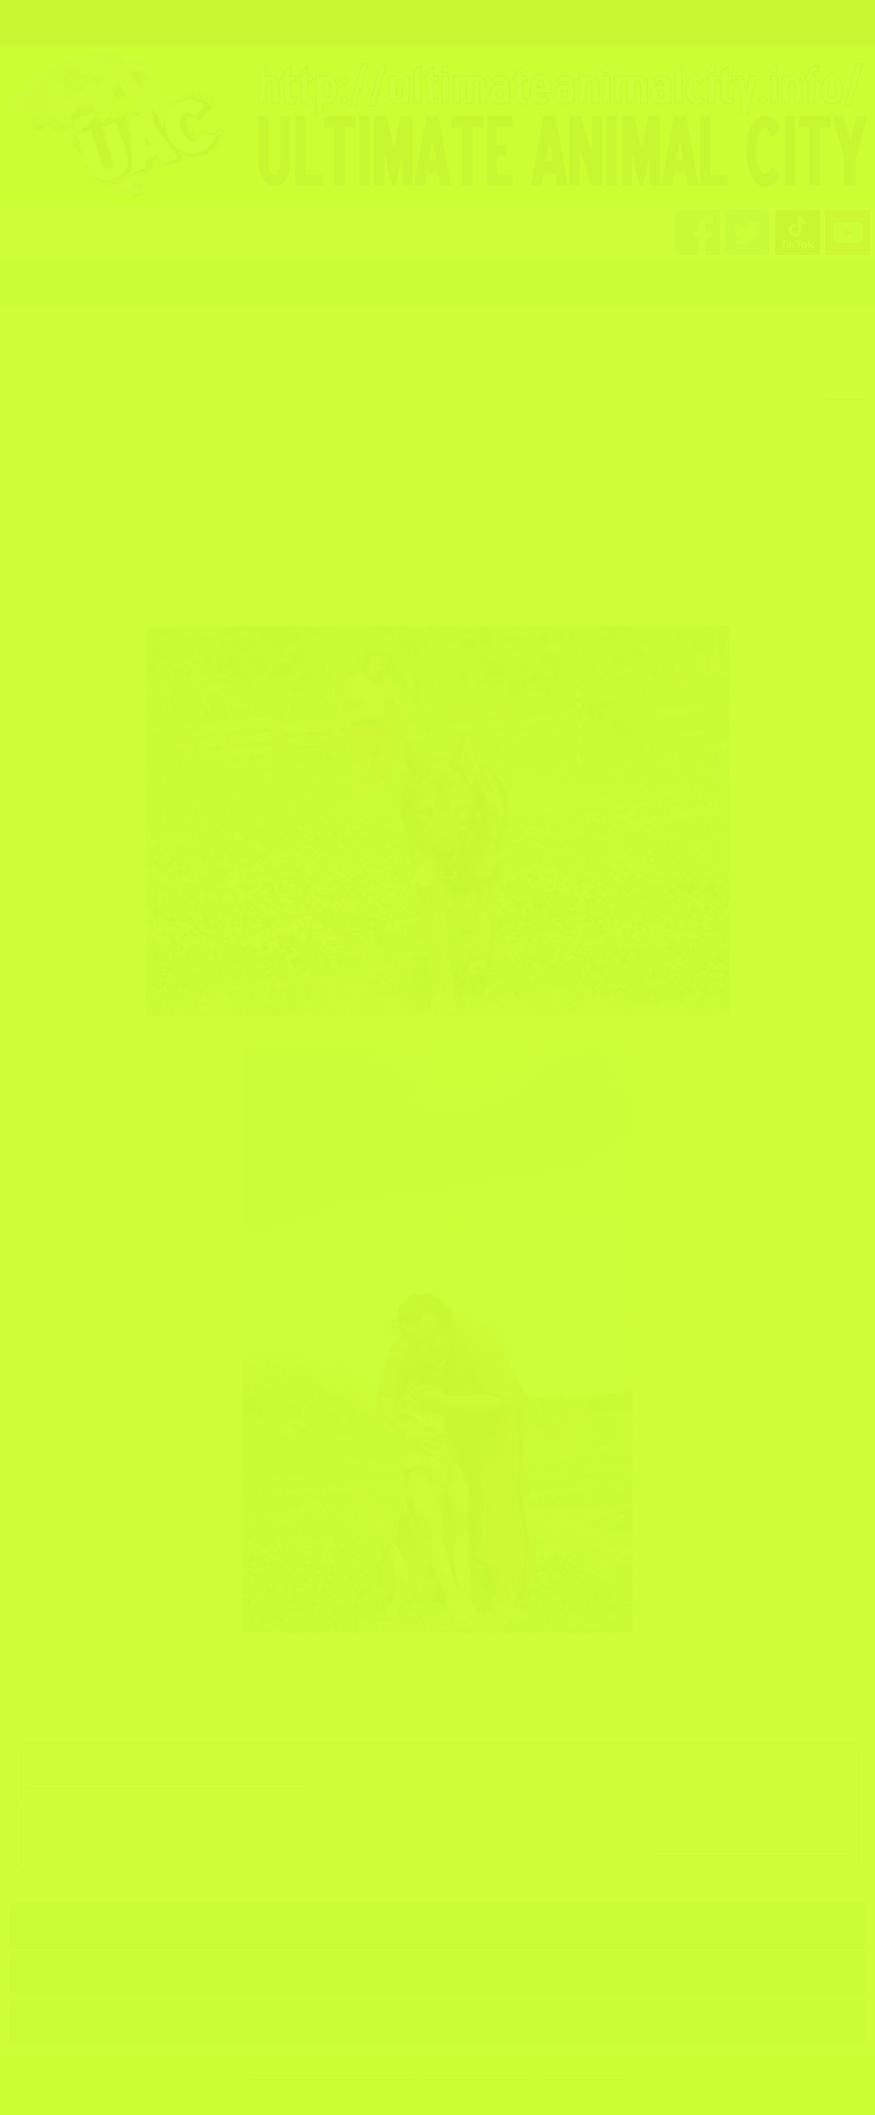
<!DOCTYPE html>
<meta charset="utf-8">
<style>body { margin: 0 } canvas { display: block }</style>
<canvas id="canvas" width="875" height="2115"></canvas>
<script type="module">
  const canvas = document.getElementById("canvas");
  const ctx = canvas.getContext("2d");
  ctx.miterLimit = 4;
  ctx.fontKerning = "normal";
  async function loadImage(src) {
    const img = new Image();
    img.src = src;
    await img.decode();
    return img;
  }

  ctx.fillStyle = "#ceff39";
  ctx.fillRect(0, 0, 875, 2115);
  ctx.fillStyle = "#c6f731";
  ctx.fillRect(0, 0, 875, 45);
  ctx.drawImage(await loadImage("img1.png"), 675, 210, 45, 45);
  ctx.drawImage(await loadImage("img2.png"), 725, 210, 45, 45);
  ctx.beginPath();
  ctx.roundRect(775, 210, 45, 45, 2.5);
  ctx.fill();
  ctx.drawImage(await loadImage("img3.png"), 780, 215, 35, 34);
  ctx.drawImage(await loadImage("img4.png"), 825, 210, 45, 45);
  ctx.fillStyle = "#cafd36";
  ctx.fillRect(0, 260, 875, 46);
  ctx.fillStyle = "#c9fc36";
  ctx.fillRect(821, 399, 44, 1);
  ctx.drawImage(await loadImage("img5.png"), 146, 626, 584, 391);
  ctx.drawImage(await loadImage("img6.png"), 242, 1048, 391, 585);
  ctx.beginPath();
  ctx.roundRect(16.5, 1743.5, 842, 126, 5.5);
  ctx.strokeStyle = "#cafd36";
  ctx.stroke();
  ctx.fillRect(25, 1788, 288, 1);
  ctx.beginPath();
  ctx.moveTo(17.5, 1805.5);
  ctx.lineTo(857.5, 1805.5);
  ctx.lineWidth = 1.2;
  ctx.setLineDash([1.25, 1.25]);
  ctx.stroke();
  ctx.fillRect(648, 1851, 202, 1);
  ctx.fillStyle = "#cafd36";
  ctx.beginPath();
  ctx.roundRect(9, 1903, 857, 46, 6);
  ctx.fill();
  ctx.beginPath();
  ctx.roundRect(9, 1951, 857, 45, 6);
  ctx.fill();
  ctx.beginPath();
  ctx.roundRect(9, 1999, 857, 46, 6);
  ctx.fill();
  ctx.drawImage(await loadImage("img7.png"), 0, 45, 875, 160);
  ctx.fillStyle = "#ccff33";
  ctx.fillRect(0, 2055, 875, 60);
  ctx.fillStyle = "#c7fa34";
  ctx.fillRect(251, 2079, 164, 1);
  ctx.fillRect(424, 2079, 107, 1);
  ctx.fillRect(540, 2079, 84, 1);
</script>
